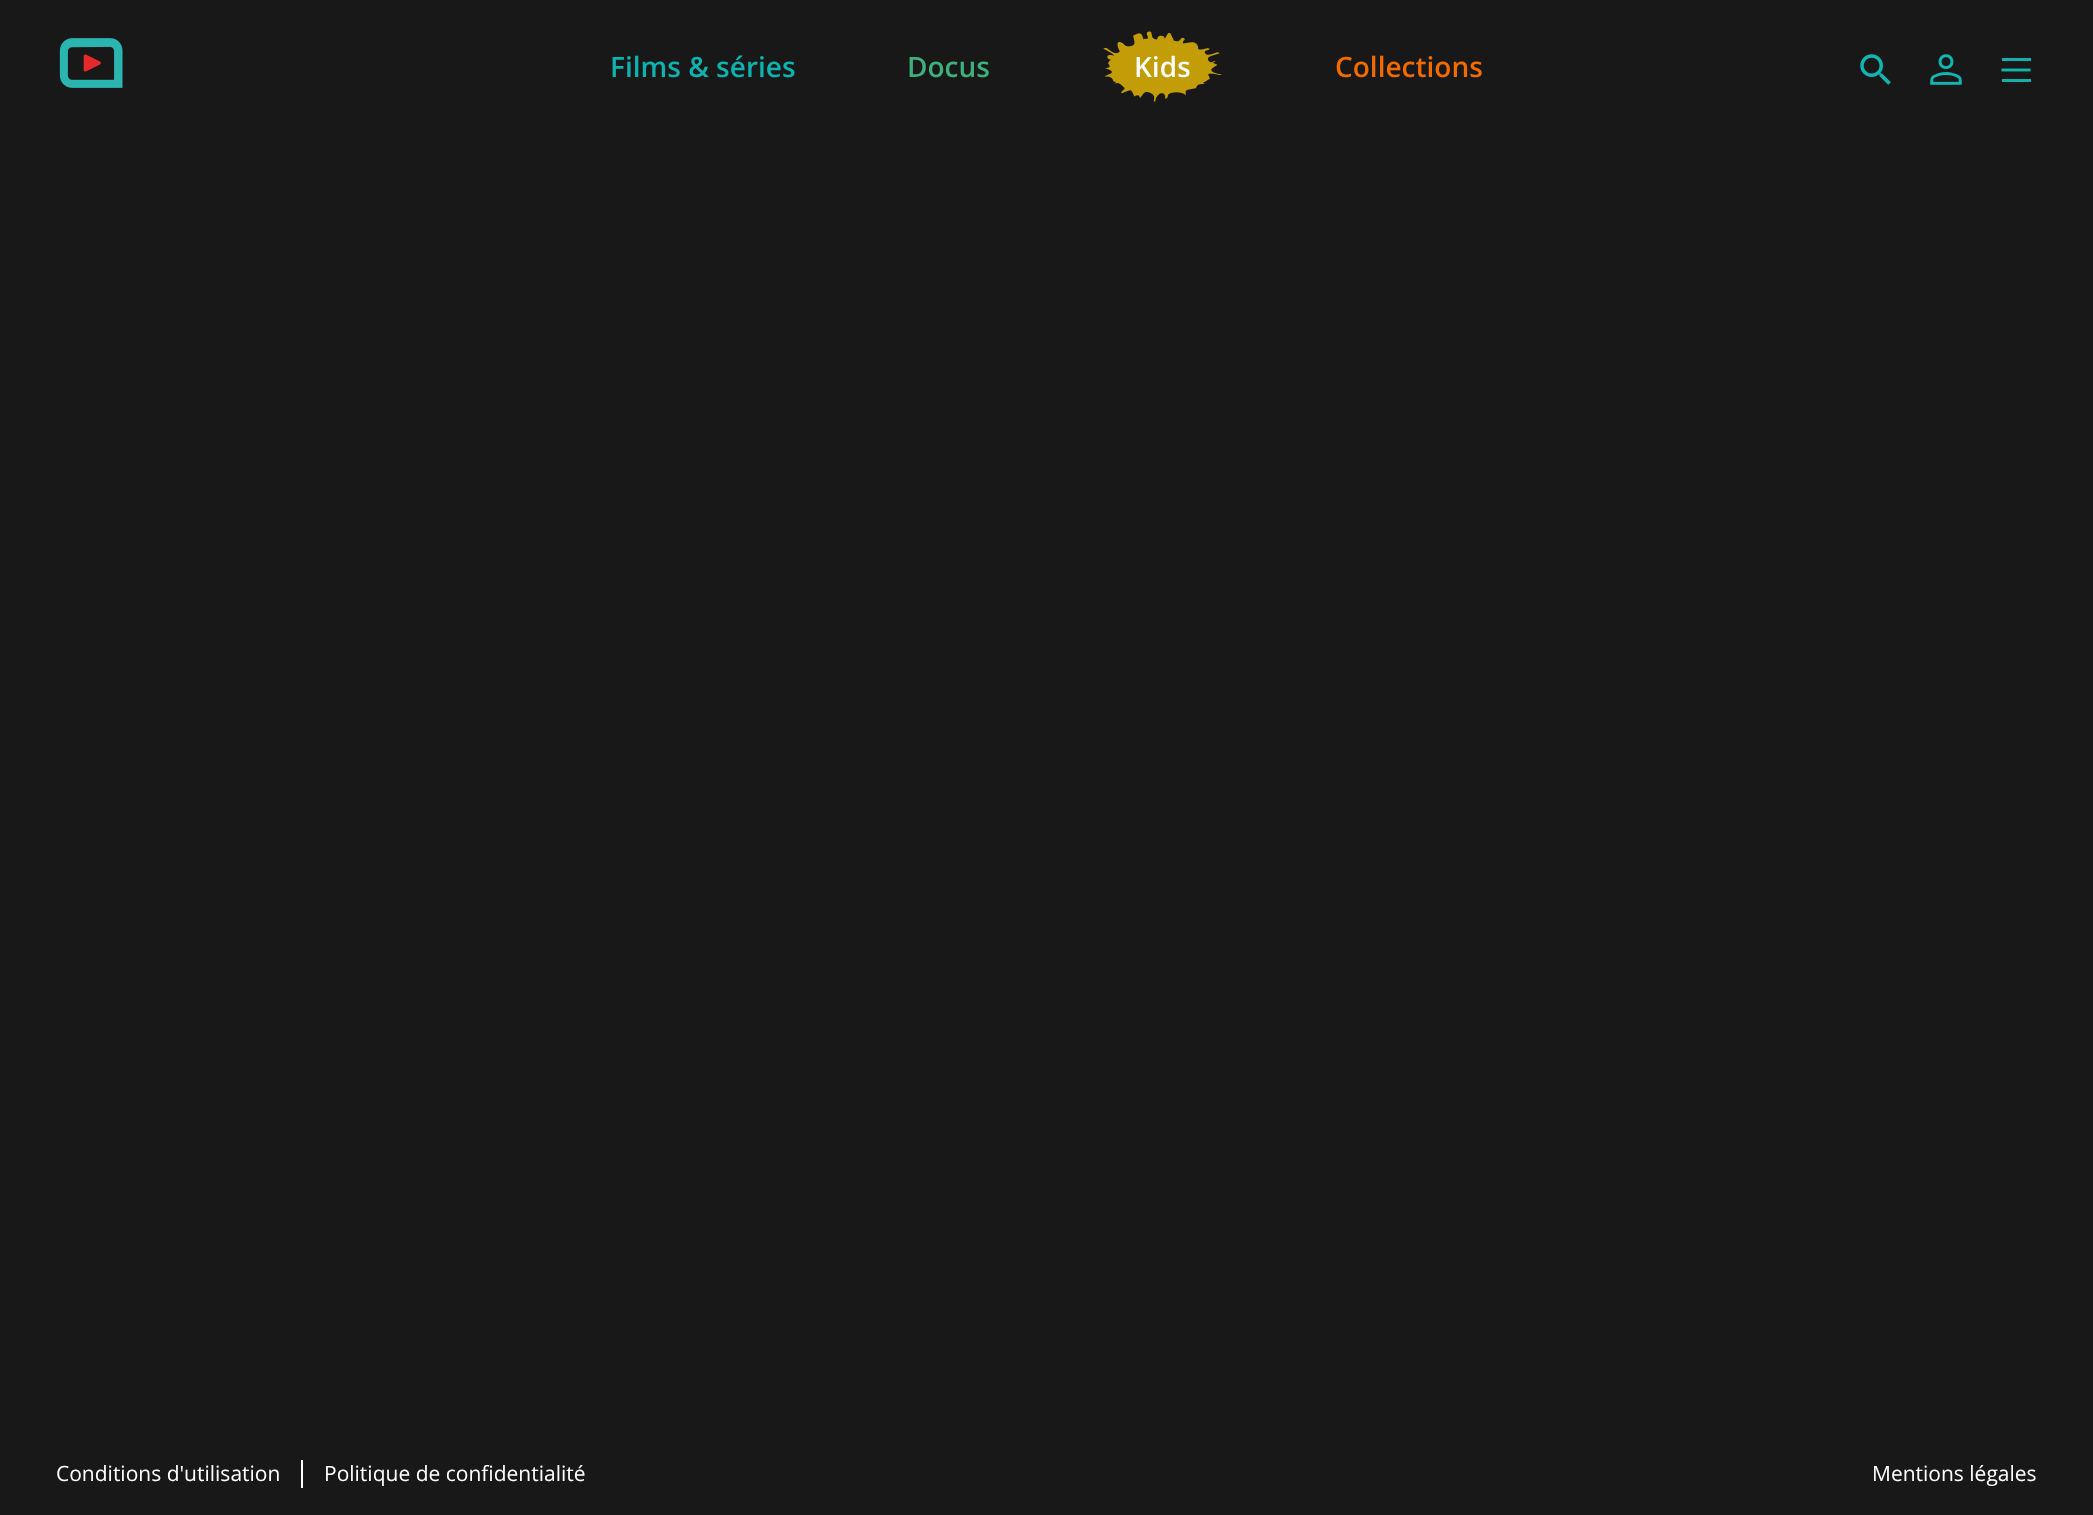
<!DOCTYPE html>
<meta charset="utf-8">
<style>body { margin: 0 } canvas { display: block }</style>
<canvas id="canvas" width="2093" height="1515"></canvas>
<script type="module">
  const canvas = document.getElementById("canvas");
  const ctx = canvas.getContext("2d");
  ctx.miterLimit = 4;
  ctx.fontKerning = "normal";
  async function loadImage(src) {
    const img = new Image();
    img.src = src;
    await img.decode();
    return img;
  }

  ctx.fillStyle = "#181818";
  ctx.fillRect(0, 0, 2093, 1515);
  ctx.drawImage(await loadImage("img1.png"), 59, 38, 64, 50);
  ctx.font = "600 28px Open Sans";
  ctx.fillStyle = "#0db3af";
  ctx.fillText("Films & séries", 610, 77);
  ctx.fillStyle = "#3eb07c";
  ctx.fillText("Docus", 907, 77);
  ctx.drawImage(await loadImage("img2.png"), 1103, 31, 119, 71);
  ctx.fillStyle = "#f16b00";
  ctx.fillText("Collections", 1335, 77);
  ctx.drawImage(await loadImage("img3.png"), 1860, 54, 31, 31);
  ctx.drawImage(await loadImage("img4.png"), 1930, 54, 32, 31);
  ctx.fillStyle = "#11b1ab";
  ctx.fillRect(2002, 58, 29, 3);
  ctx.beginPath();
  ctx.moveTo(2001.5, 70);
  ctx.lineTo(2030.5, 70);
  ctx.strokeStyle = "#11b6b0";
  ctx.lineWidth = 2.9;
  ctx.stroke();
  ctx.fillRect(2002, 79, 29, 3);
  ctx.font = "21px Open Sans";
  ctx.fillStyle = "#ffffff";
  ctx.fillText("Conditions d'utilisation", 56, 1481);
  ctx.fillRect(301, 1460, 2, 28);
  ctx.fillText("Politique de confidentialité", 324, 1481);
  ctx.fillText("Mentions légales", 1872, 1481);
</script>
